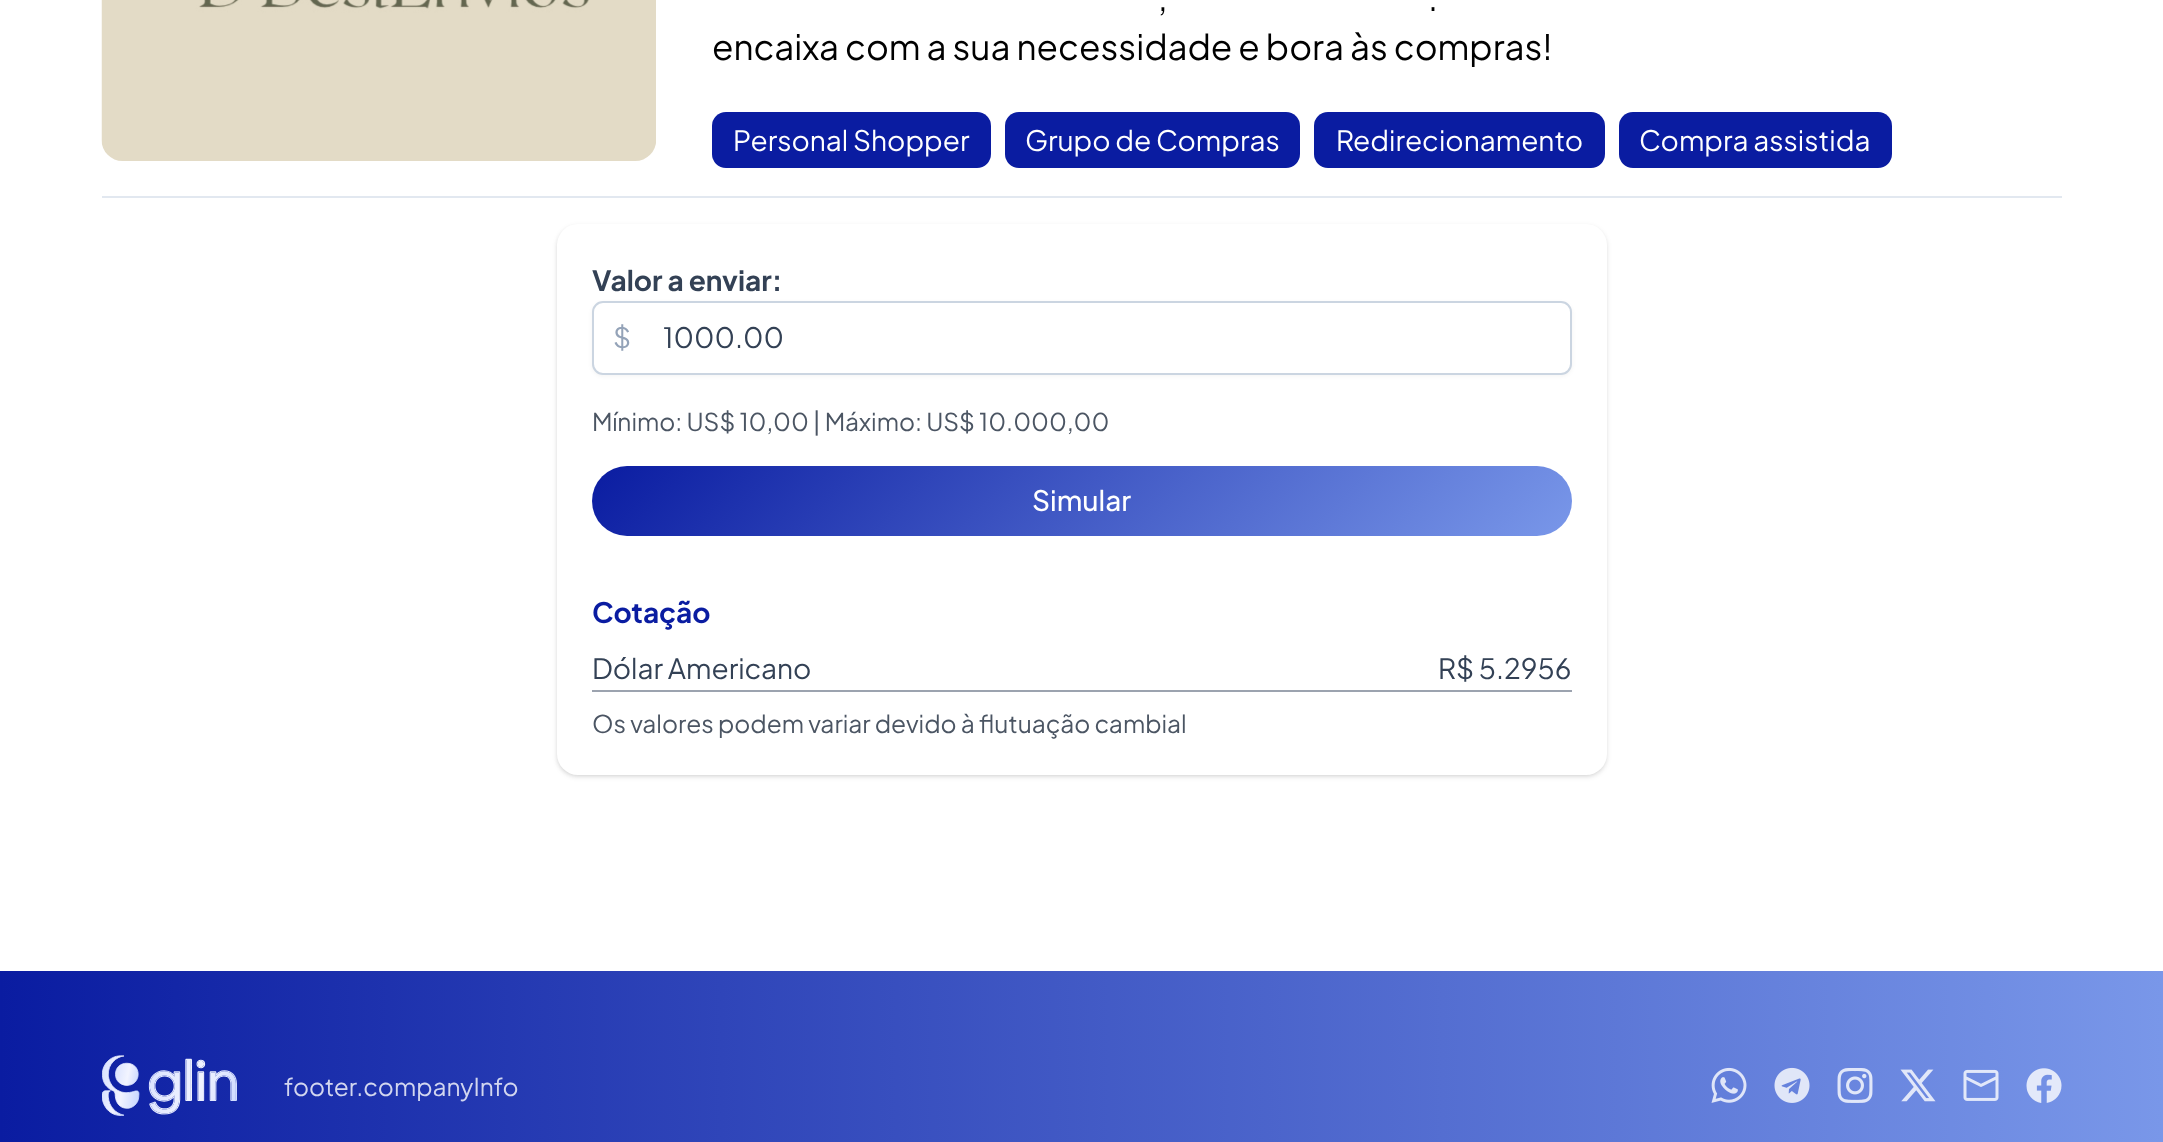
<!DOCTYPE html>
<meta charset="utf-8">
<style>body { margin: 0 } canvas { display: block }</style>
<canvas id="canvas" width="2163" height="1142"></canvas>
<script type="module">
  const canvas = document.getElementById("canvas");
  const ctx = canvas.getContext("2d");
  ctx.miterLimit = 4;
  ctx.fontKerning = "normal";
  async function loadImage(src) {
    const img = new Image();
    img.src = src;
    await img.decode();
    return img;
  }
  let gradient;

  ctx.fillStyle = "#ffffff";
  ctx.fillRect(0, 0, 2163, 1142);
  ctx.drawImage(await loadImage("img1.png"), 101, 0, 555, 161);
  ctx.font = "35px Plus Jakarta Sans";
  ctx.fillStyle = "#000000";
  ctx.fillText(",", 1158, 11);
  ctx.fillText(".", 1428, 11);
  ctx.fillText("encaixa com a sua necessidade e bora às compras!", 712, 60);
  ctx.fillStyle = "#0a1ca1";
  ctx.beginPath();
  ctx.roundRect(712, 112, 279, 56, 14);
  ctx.fill();
  ctx.font = "28px Plus Jakarta Sans";
  ctx.fillStyle = "#ffffff";
  ctx.fillText("Personal Shopper", 733, 151);
  ctx.fillStyle = "#0a1ca1";
  ctx.beginPath();
  ctx.roundRect(1005, 112, 295, 56, 14);
  ctx.fill();
  ctx.fillStyle = "#ffffff";
  ctx.fillText("Grupo de Compras", 1025, 151);
  ctx.fillStyle = "#0a1ca1";
  ctx.beginPath();
  ctx.roundRect(1314, 112, 291, 56, 14);
  ctx.fill();
  ctx.fillStyle = "#ffffff";
  ctx.fillText("Redirecionamento", 1336, 151);
  ctx.fillStyle = "#0a1ca1";
  ctx.beginPath();
  ctx.roundRect(1619, 112, 273, 56, 14);
  ctx.fill();
  ctx.fillStyle = "#ffffff";
  ctx.fillText("Compra assistida", 1639, 151);
  ctx.fillStyle = "#e2e8f0";
  ctx.fillRect(102, 196, 1960, 2);
  ctx.fillStyle = "rgba(0, 0, 0, 0.1)";
  ctx.filter = "blur(2px)";
  ctx.beginPath();
  ctx.roundRect(558, 228, 1047, 547, 19);
  ctx.fill();
  ctx.filter = "none";
  ctx.filter = "blur(2.5px)";
  ctx.beginPath();
  ctx.roundRect(557, 226, 1050, 551, 21);
  ctx.fill();
  ctx.filter = "none";
  ctx.fillStyle = "#ffffff";
  ctx.beginPath();
  ctx.roundRect(557, 224, 1050, 551, 21);
  ctx.fill();
  ctx.font = "bold 28px Plus Jakarta Sans";
  ctx.fillStyle = "#334155";
  ctx.fillText("Valor a enviar:", 592, 291);
  ctx.fillStyle = "rgba(18, 18, 23, 0.05)";
  ctx.filter = "blur(2px)";
  ctx.beginPath();
  ctx.roundRect(592, 303, 980, 73, 11);
  ctx.fill();
  ctx.filter = "none";
  ctx.fillStyle = "#ffffff";
  ctx.beginPath();
  ctx.roundRect(593, 302, 978, 72, 10);
  ctx.fill();
  ctx.strokeStyle = "#cbd5e1";
  ctx.lineWidth = 2;
  ctx.stroke();
  ctx.font = "28px Plus Jakarta Sans";
  ctx.fillStyle = "#94a3b8";
  ctx.fillText("$", 613, 348);
  ctx.fillStyle = "#334155";
  ctx.fillText("1000.00", 663, 348);
  ctx.font = "24.5px Plus Jakarta Sans";
  ctx.fillStyle = "#4b5563";
  ctx.fillText("Mínimo: US$ 10,00 | Máximo: US$ 10.000,00", 592, 431);
  gradient = ctx.createLinearGradient(819, 238, 1344, 763);
  gradient.addColorStop(0, "#0a1ca1");
  gradient.addColorStop(1, "#7997e9");
  ctx.fillStyle = gradient;
  ctx.beginPath();
  ctx.roundRect(592, 466, 980, 70, 35);
  ctx.fill();
  ctx.font = "500 28px Plus Jakarta Sans";
  ctx.fillStyle = "#ffffff";
  ctx.fillText("Simular", 1032, 511);
  ctx.font = "bold 28px Plus Jakarta Sans";
  ctx.fillStyle = "#0a1ca1";
  ctx.fillText("Cotação", 592, 623);
  ctx.fillStyle = "#9ca3af";
  ctx.fillRect(592, 690, 980, 2);
  ctx.font = "28px Plus Jakarta Sans";
  ctx.fillStyle = "#334155";
  ctx.fillText("Dólar Americano", 592, 679);
  ctx.fillText("R$ 5.2956", 1438, 679);
  ctx.font = "24.5px Plus Jakarta Sans";
  ctx.fillStyle = "#4b5563";
  ctx.fillText("Os valores podem variar devido à flutuação cambial", 592, 733);
  gradient = ctx.createLinearGradient(0, 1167, 2163, 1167);
  gradient.addColorStop(0, "#0a1ca1");
  gradient.addColorStop(1, "#7997e9");
  ctx.fillStyle = gradient;
  ctx.fillRect(0, 971, 2163, 171);
  ctx.drawImage(await loadImage("img2.png"), 102, 1055, 135, 61);
  ctx.fillStyle = "#d2d6ef";
  ctx.fillText("footer.companyInfo", 284, 1096);
  ctx.drawImage(await loadImage("img3.png"), 1711, 1067, 36, 36);
  ctx.drawImage(await loadImage("img4.png"), 1774, 1067, 36, 36);
  ctx.drawImage(await loadImage("img5.png"), 1837, 1068, 36, 35);
  ctx.drawImage(await loadImage("img6.png"), 1900, 1069, 36, 33);
  ctx.drawImage(await loadImage("img7.png"), 1963, 1069, 36, 32);
  ctx.drawImage(await loadImage("img8.png"), 2026, 1068, 36, 35);
</script>
